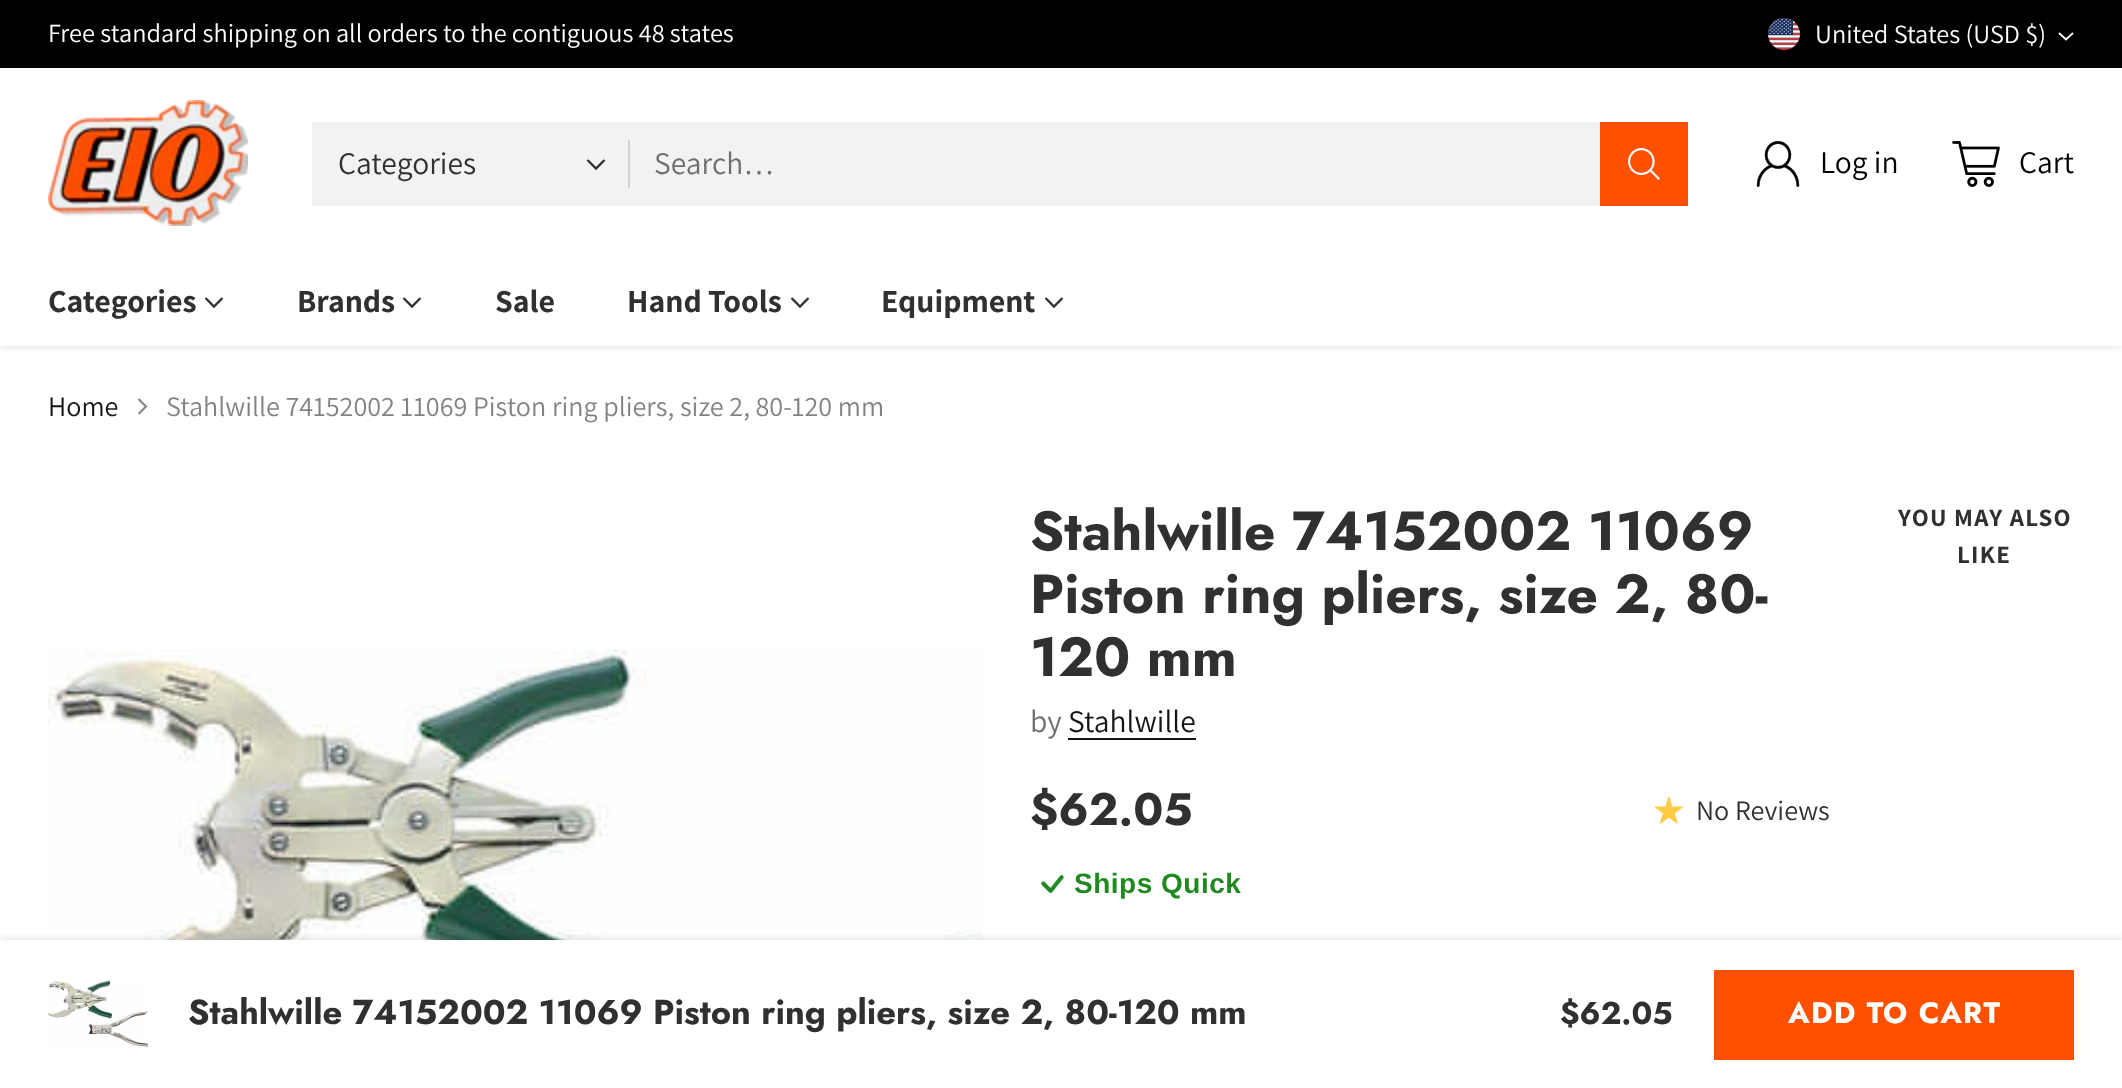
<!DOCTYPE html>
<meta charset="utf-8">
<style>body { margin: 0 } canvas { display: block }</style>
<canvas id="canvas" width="2122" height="1088"></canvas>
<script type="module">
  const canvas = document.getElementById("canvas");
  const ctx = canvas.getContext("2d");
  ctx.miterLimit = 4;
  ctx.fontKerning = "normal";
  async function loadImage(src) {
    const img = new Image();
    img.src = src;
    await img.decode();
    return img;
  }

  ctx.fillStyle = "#ffffff";
  ctx.fillRect(0, 0, 2122, 1088);
  ctx.fillStyle = "#000000";
  ctx.fillRect(0, 0, 2122, 68);
  ctx.font = "26.3px Assistant";
  ctx.fillStyle = "#ffffff";
  ctx.fillText("Free standard shipping on all orders to the contiguous 48 states", 48, 42);
  ctx.drawImage(await loadImage("img1.png"), 1768, 18, 32, 32);
  ctx.fillText("United States (USD $)", 1815, 43);
  ctx.beginPath();
  ctx.moveTo(2059, 33);
  ctx.lineTo(2066, 39.5);
  ctx.lineTo(2073, 33);
  ctx.strokeStyle = "#ffffff";
  ctx.lineWidth = 1.8;
  ctx.stroke();
  ctx.save();
  ctx.beginPath();
  ctx.rect(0, 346, 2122, 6);
  ctx.clip();
  ctx.fillStyle = "rgba(0, 0, 0, 0.15)";
  ctx.filter = "blur(5px)";
  ctx.beginPath();
  ctx.rect(0, 258, 2122, 88);
  ctx.fill();
  ctx.filter = "none";
  ctx.restore();
  ctx.fillRect(0, 251, 2122, 7);
  ctx.drawImage(await loadImage("img2.png"), 48, 100, 200, 126);
  ctx.strokeStyle = "#f2f2f2";
  ctx.lineWidth = 2;
  ctx.strokeRect(313, 123, 1374, 82);
  ctx.fillStyle = "#f2f2f2";
  ctx.fillRect(314, 124, 1286, 80);
  ctx.font = "31.5px Assistant";
  ctx.fillStyle = "#303030";
  ctx.fillText("Categories", 338, 174);
  ctx.beginPath();
  ctx.moveTo(587.5, 160);
  ctx.lineTo(596, 168.5);
  ctx.lineTo(604.5, 160);
  ctx.strokeStyle = "#303030";
  ctx.lineWidth = 2.3;
  ctx.stroke();
  ctx.fillStyle = "#d2d2d2";
  ctx.fillRect(628, 140, 2, 48);
  ctx.fillStyle = "#6e6e6e";
  ctx.fillText("Search…", 654, 174);
  ctx.fillStyle = "#ff5000";
  ctx.fillRect(1600, 122, 88, 84);
  ctx.drawImage(await loadImage("img3.png"), 1628, 148, 32, 32);
  ctx.drawImage(await loadImage("img4.png"), 1756, 141, 44, 46);
  ctx.fillStyle = "#000000";
  ctx.fillText("Log in", 1820, 173);
  ctx.drawImage(await loadImage("img5.png"), 1952, 141, 48, 46);
  ctx.fillText("Cart", 2019, 173);
  ctx.font = "bold 32px Assistant";
  ctx.fillStyle = "#303030";
  ctx.fillText("Categories", 48, 312);
  ctx.beginPath();
  ctx.moveTo(205.5, 298);
  ctx.lineTo(214, 306.5);
  ctx.lineTo(222.5, 298);
  ctx.stroke();
  ctx.fillText("Brands", 297, 312);
  ctx.beginPath();
  ctx.moveTo(403.5, 298);
  ctx.lineTo(412, 306.5);
  ctx.lineTo(420.5, 298);
  ctx.stroke();
  ctx.fillText("Sale", 495, 312);
  ctx.fillText("Hand Tools", 627, 312);
  ctx.beginPath();
  ctx.moveTo(791.5, 298);
  ctx.lineTo(800, 306.5);
  ctx.lineTo(808.5, 298);
  ctx.stroke();
  ctx.fillText("Equipment", 881, 312);
  ctx.beginPath();
  ctx.moveTo(1045.5, 298);
  ctx.lineTo(1054, 306.5);
  ctx.lineTo(1062.5, 298);
  ctx.stroke();
  ctx.font = "28.1px Assistant";
  ctx.fillStyle = "#151515";
  ctx.fillText("Home", 48, 416);
  ctx.beginPath();
  ctx.moveTo(138.5, 414);
  ctx.lineTo(146, 406.5);
  ctx.lineTo(138.5, 399);
  ctx.strokeStyle = "#838383";
  ctx.lineWidth = 2.1;
  ctx.stroke();
  ctx.fillStyle = "#838383";
  ctx.fillText("Stahlwille 74152002 11069 Piston ring pliers, size 2, 80-120 mm", 166, 416);
  ctx.font = "bold 54.9px Jost";
  ctx.fillStyle = "#303030";
  ctx.fillText("Stahlwille 74152002 11069", 1030, 550);
  ctx.fillText("Piston ring pliers, size 2, 80-", 1030, 613);
  ctx.fillText("120 mm", 1030, 676);
  ctx.font = "31.5px Assistant";
  ctx.fillStyle = "#6e6e6e";
  ctx.fillText("by", 1030, 732);
  ctx.fillStyle = "#151515";
  ctx.fillText("Stahlwille", 1068, 732);
  ctx.fillRect(1068, 738, 128, 2);
  ctx.font = "bold 45.5px Jost";
  ctx.fillStyle = "#303030";
  ctx.fillText("$62.05", 1030, 825);
  ctx.drawImage(await loadImage("img6.png"), 1654, 796, 29, 28);
  ctx.font = "28.1px Assistant";
  ctx.fillText("No Reviews", 1696, 820);
  ctx.drawImage(await loadImage("img7.png"), 1041, 875, 23, 18);
  ctx.letterSpacing = "0.5px";
  ctx.font = "bold 28px Liberation Sans";
  ctx.fillStyle = "#208920";
  ctx.fillText("Ships Quick", 1074, 893);
  ctx.drawImage(await loadImage("img8.png"), 48, 980, 100, 68);
  ctx.drawImage(await loadImage("img9.png"), 48, 649, 934, 291);
  ctx.save();
  ctx.beginPath();
  ctx.rect(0, 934, 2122, 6);
  ctx.clip();
  ctx.fillStyle = "rgba(0, 0, 0, 0.15)";
  ctx.filter = "blur(5px)";
  ctx.beginPath();
  ctx.rect(0, 940, 2122, 148);
  ctx.fill();
  ctx.filter = "none";
  ctx.restore();
  ctx.letterSpacing = "0px";
  ctx.font = "bold 34.5px Jost";
  ctx.fillStyle = "#303030";
  ctx.fillText("Stahlwille 74152002 11069 Piston ring pliers, size 2, 80-120 mm", 188, 1024);
  ctx.font = "bold 31.5px Jost";
  ctx.fillText("$62.05", 1560, 1024);
  ctx.fillStyle = "#ff5000";
  ctx.fillRect(1714, 970, 360, 90);
  ctx.letterSpacing = "1.25px";
  ctx.font = "bold 29.5px Jost";
  ctx.fillStyle = "#ffffff";
  ctx.fillText("ADD TO CART", 1788, 1023);
  ctx.font = "bold 25px Assistant";
  ctx.fillStyle = "#303030";
  ctx.fillText("YOU MAY ALSO", 1898, 526);
  ctx.fillText("LIKE", 1957, 563);
</script>
